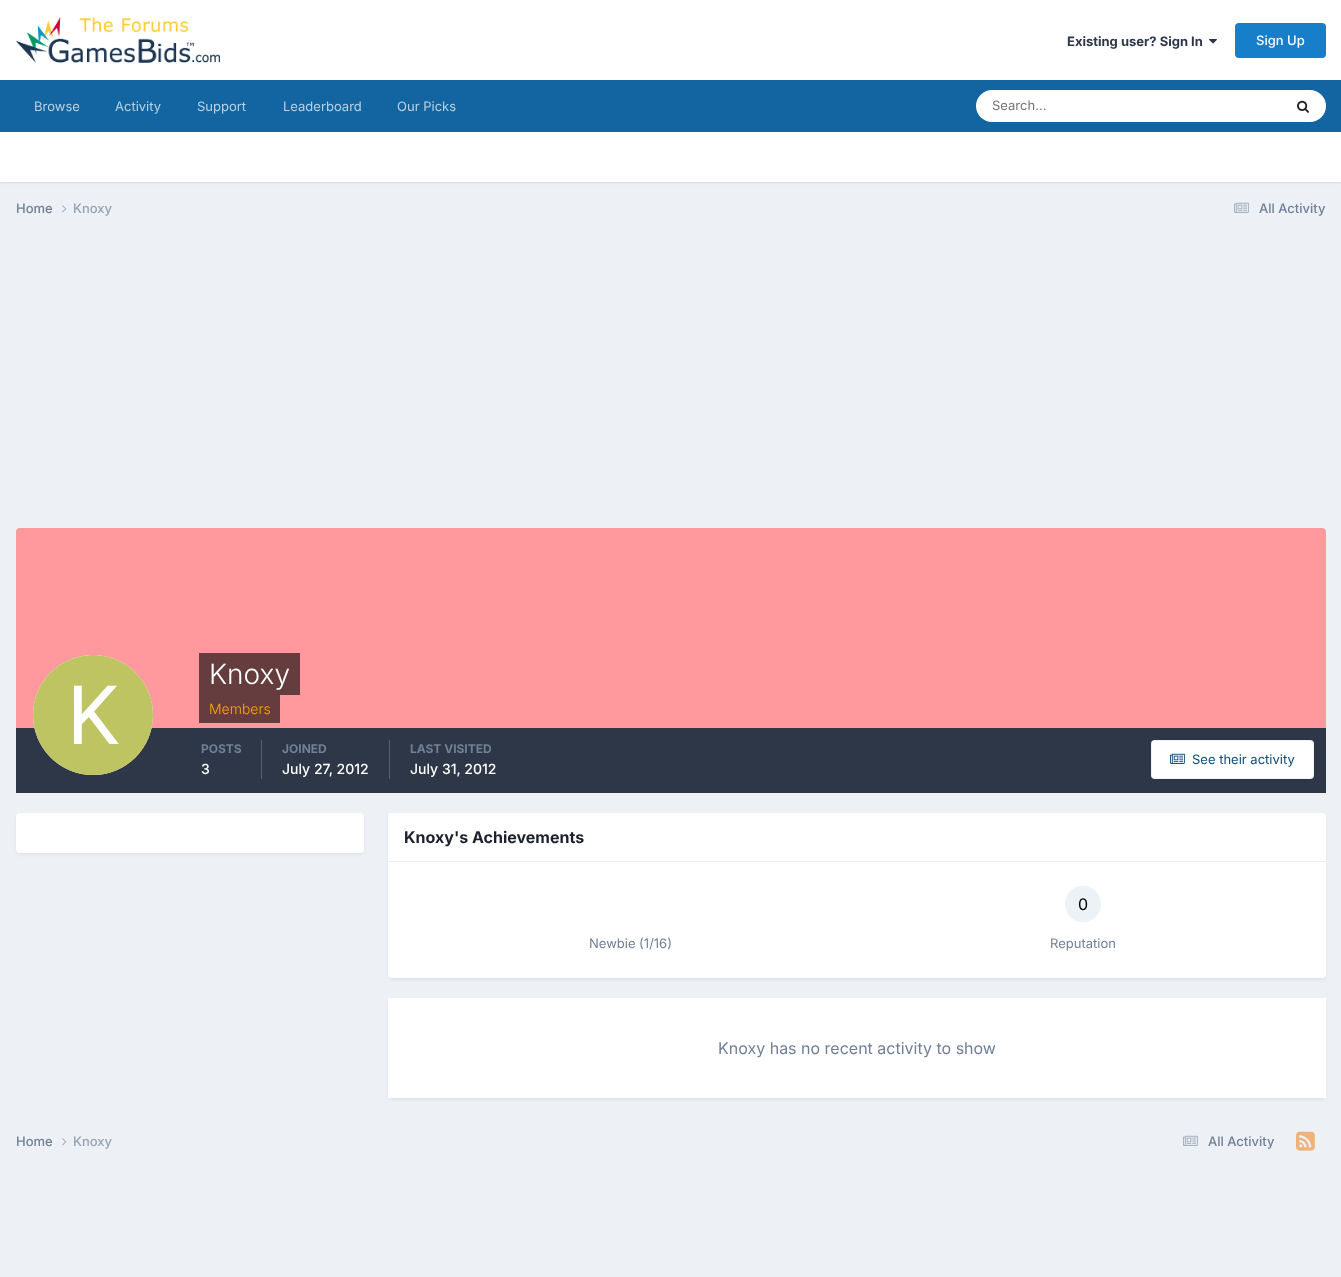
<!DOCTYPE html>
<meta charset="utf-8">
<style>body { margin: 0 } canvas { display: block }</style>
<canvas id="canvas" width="1341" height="1277"></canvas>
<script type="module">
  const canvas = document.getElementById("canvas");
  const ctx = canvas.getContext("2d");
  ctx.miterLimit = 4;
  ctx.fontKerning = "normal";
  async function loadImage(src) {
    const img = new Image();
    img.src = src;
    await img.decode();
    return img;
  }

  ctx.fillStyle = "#edf0f4";
  ctx.fillRect(0, 0, 1341, 1277);
  ctx.fillStyle = "#ffffff";
  ctx.fillRect(0, 0, 1341, 80);
  ctx.drawImage(await loadImage("img1.png"), 16, 17, 204, 46);
  ctx.font = "bold 13px Inter";
  ctx.fillStyle = "#2d3748";
  ctx.fillText("Existing user? Sign In", 1067, 46);
  ctx.drawImage(await loadImage("img2.png"), 1209, 39, 8, 5);
  ctx.fillStyle = "#177ec9";
  ctx.beginPath();
  ctx.roundRect(1235, 23, 91, 35, 4);
  ctx.fill();
  ctx.font = "500 13px Inter";
  ctx.fillStyle = "#ffffff";
  ctx.fillText("Sign Up", 1256, 45);
  ctx.fillStyle = "#1265a1";
  ctx.fillRect(0, 80, 1341, 52);
  ctx.font = "13px Inter";
  ctx.fillStyle = "#b8d1e3";
  ctx.fillText("Browse", 34, 111);
  ctx.fillText("Activity", 115, 111);
  ctx.fillText("Support", 197, 111);
  ctx.fillText("Leaderboard", 283, 111);
  ctx.fillText("Our Picks", 397, 111);
  ctx.fillStyle = "#ffffff";
  ctx.beginPath();
  ctx.roundRect(976, 90, 350, 32, 16);
  ctx.fill();
  ctx.fillStyle = "#757575";
  ctx.fillText("Search...", 992, 110);
  ctx.drawImage(await loadImage("img3.png"), 1297, 100, 12, 13);
  ctx.fillStyle = "rgba(0, 0, 0, 0.1)";
  ctx.filter = "blur(1px)";
  ctx.beginPath();
  ctx.rect(0, 133, 1341, 50);
  ctx.fill();
  ctx.filter = "none";
  ctx.fillStyle = "#ffffff";
  ctx.fillRect(0, 132, 1341, 50);
  ctx.font = "500 13px Inter";
  ctx.fillStyle = "#718096";
  ctx.fillText("Home", 16, 213);
  ctx.drawImage(await loadImage("img4.png"), 62, 205, 5, 8);
  ctx.fillStyle = "#96a2b2";
  ctx.fillText("Knoxy", 73, 213);
  ctx.drawImage(await loadImage("img5.png"), 1234, 202, 15, 11);
  ctx.fillStyle = "#718096";
  ctx.fillText("All Activity", 1259, 213);
  ctx.fillStyle = "#ff999e";
  ctx.beginPath();
  ctx.roundRect(16, 528, 1310, 200, [4, 4, 0, 0]);
  ctx.fill();
  ctx.fillStyle = "#2d3748";
  ctx.fillRect(16, 728, 1310, 65);
  ctx.fillStyle = "#ffffff";
  ctx.beginPath();
  ctx.arc(93, 715, 60, 0, Math.PI * 2);
  ctx.fill();
  ctx.drawImage(await loadImage("img6.png"), 33, 655, 120, 120);
  ctx.fillStyle = "#663d3f";
  ctx.fillRect(199, 653, 101, 42);
  ctx.font = "300 28px Inter";
  ctx.fillStyle = "#ffffff";
  ctx.fillText("Knoxy", 209, 684);
  ctx.fillStyle = "#663d3f";
  ctx.fillRect(199, 695, 81, 28);
  ctx.font = "300 14px Inter";
  ctx.fillStyle = "#ffa500";
  ctx.fillText("Members", 209, 714);
  ctx.fillStyle = "#575f6d";
  ctx.fillRect(261, 740, 1, 39);
  ctx.font = "bold 12px Inter";
  ctx.fillStyle = "#718096";
  ctx.fillText("POSTS", 201, 753);
  ctx.font = "500 14px Inter";
  ctx.fillStyle = "#ffffff";
  ctx.fillText("3", 201, 774);
  ctx.fillStyle = "#575f6d";
  ctx.fillRect(389, 740, 1, 39);
  ctx.font = "bold 12px Inter";
  ctx.fillStyle = "#718096";
  ctx.fillText("JOINED", 282, 753);
  ctx.font = "500 14px Inter";
  ctx.fillStyle = "#ffffff";
  ctx.fillText("July 27, 2012", 282, 774);
  ctx.font = "bold 12px Inter";
  ctx.fillStyle = "#718096";
  ctx.fillText("LAST VISITED", 410, 753);
  ctx.font = "500 14px Inter";
  ctx.fillStyle = "#ffffff";
  ctx.fillText("July 31, 2012", 410, 774);
  ctx.beginPath();
  ctx.roundRect(1151, 740, 163, 39, 4);
  ctx.fill();
  ctx.beginPath();
  ctx.roundRect(1151.5, 740.5, 162, 38, 3.5);
  ctx.strokeStyle = "rgba(14, 76, 121, 0.07)";
  ctx.stroke();
  ctx.drawImage(await loadImage("img7.png"), 1170, 753, 15, 11);
  ctx.font = "13px Inter";
  ctx.fillStyle = "#0e4c79";
  ctx.fillText("See their activity", 1192, 764);
  ctx.fillStyle = "rgba(45, 55, 72, 0.1)";
  ctx.filter = "blur(2px)";
  ctx.beginPath();
  ctx.roundRect(17, 816, 346, 38, 3);
  ctx.fill();
  ctx.filter = "none";
  ctx.fillStyle = "#ffffff";
  ctx.beginPath();
  ctx.roundRect(16, 813, 348, 40, 4);
  ctx.fill();
  ctx.fillStyle = "rgba(45, 55, 72, 0.1)";
  ctx.filter = "blur(2px)";
  ctx.beginPath();
  ctx.roundRect(389, 816, 936, 163, 3);
  ctx.fill();
  ctx.filter = "none";
  ctx.fillStyle = "#ffffff";
  ctx.beginPath();
  ctx.roundRect(388, 813, 938, 165, 4);
  ctx.fill();
  ctx.beginPath();
  ctx.roundRect(388, 813, 938, 49, [4, 4, 0, 0]);
  ctx.fill();
  ctx.fillStyle = "#eaecef";
  ctx.fillRect(388, 861, 938, 1);
  ctx.font = "bold 16px Inter";
  ctx.fillStyle = "#1a202c";
  ctx.fillText("Knoxy's Achievements", 404, 843);
  ctx.font = "13px Inter";
  ctx.fillStyle = "#718096";
  ctx.fillText("Newbie (1/16)", 589, 948);
  ctx.fillStyle = "#edf2f7";
  ctx.beginPath();
  ctx.arc(1083, 904, 18, 0, Math.PI * 2);
  ctx.fill();
  ctx.font = "16px Inter";
  ctx.fillStyle = "#000000";
  ctx.fillText("0", 1078, 910);
  ctx.font = "13px Inter";
  ctx.fillStyle = "#718096";
  ctx.fillText("Reputation", 1050, 948);
  ctx.fillStyle = "rgba(45, 55, 72, 0.1)";
  ctx.filter = "blur(2px)";
  ctx.beginPath();
  ctx.roundRect(389, 1001, 936, 98, 3);
  ctx.fill();
  ctx.filter = "none";
  ctx.fillStyle = "#ffffff";
  ctx.fillRect(388, 998, 938, 100);
  ctx.font = "16px Inter";
  ctx.fillStyle = "#718096";
  ctx.fillText("Knoxy has no recent activity to show", 718, 1054);
  ctx.font = "500 13px Inter";
  ctx.fillText("Home", 16, 1146);
  ctx.drawImage(await loadImage("img4.png"), 62, 1138, 5, 8);
  ctx.fillStyle = "#96a2b2";
  ctx.fillText("Knoxy", 73, 1146);
  ctx.drawImage(await loadImage("img5.png"), 1183, 1135, 15, 11);
  ctx.fillStyle = "#718096";
  ctx.fillText("All Activity", 1208, 1146);
  ctx.drawImage(await loadImage("img8.png"), 1296, 1131, 19, 20);
</script>
